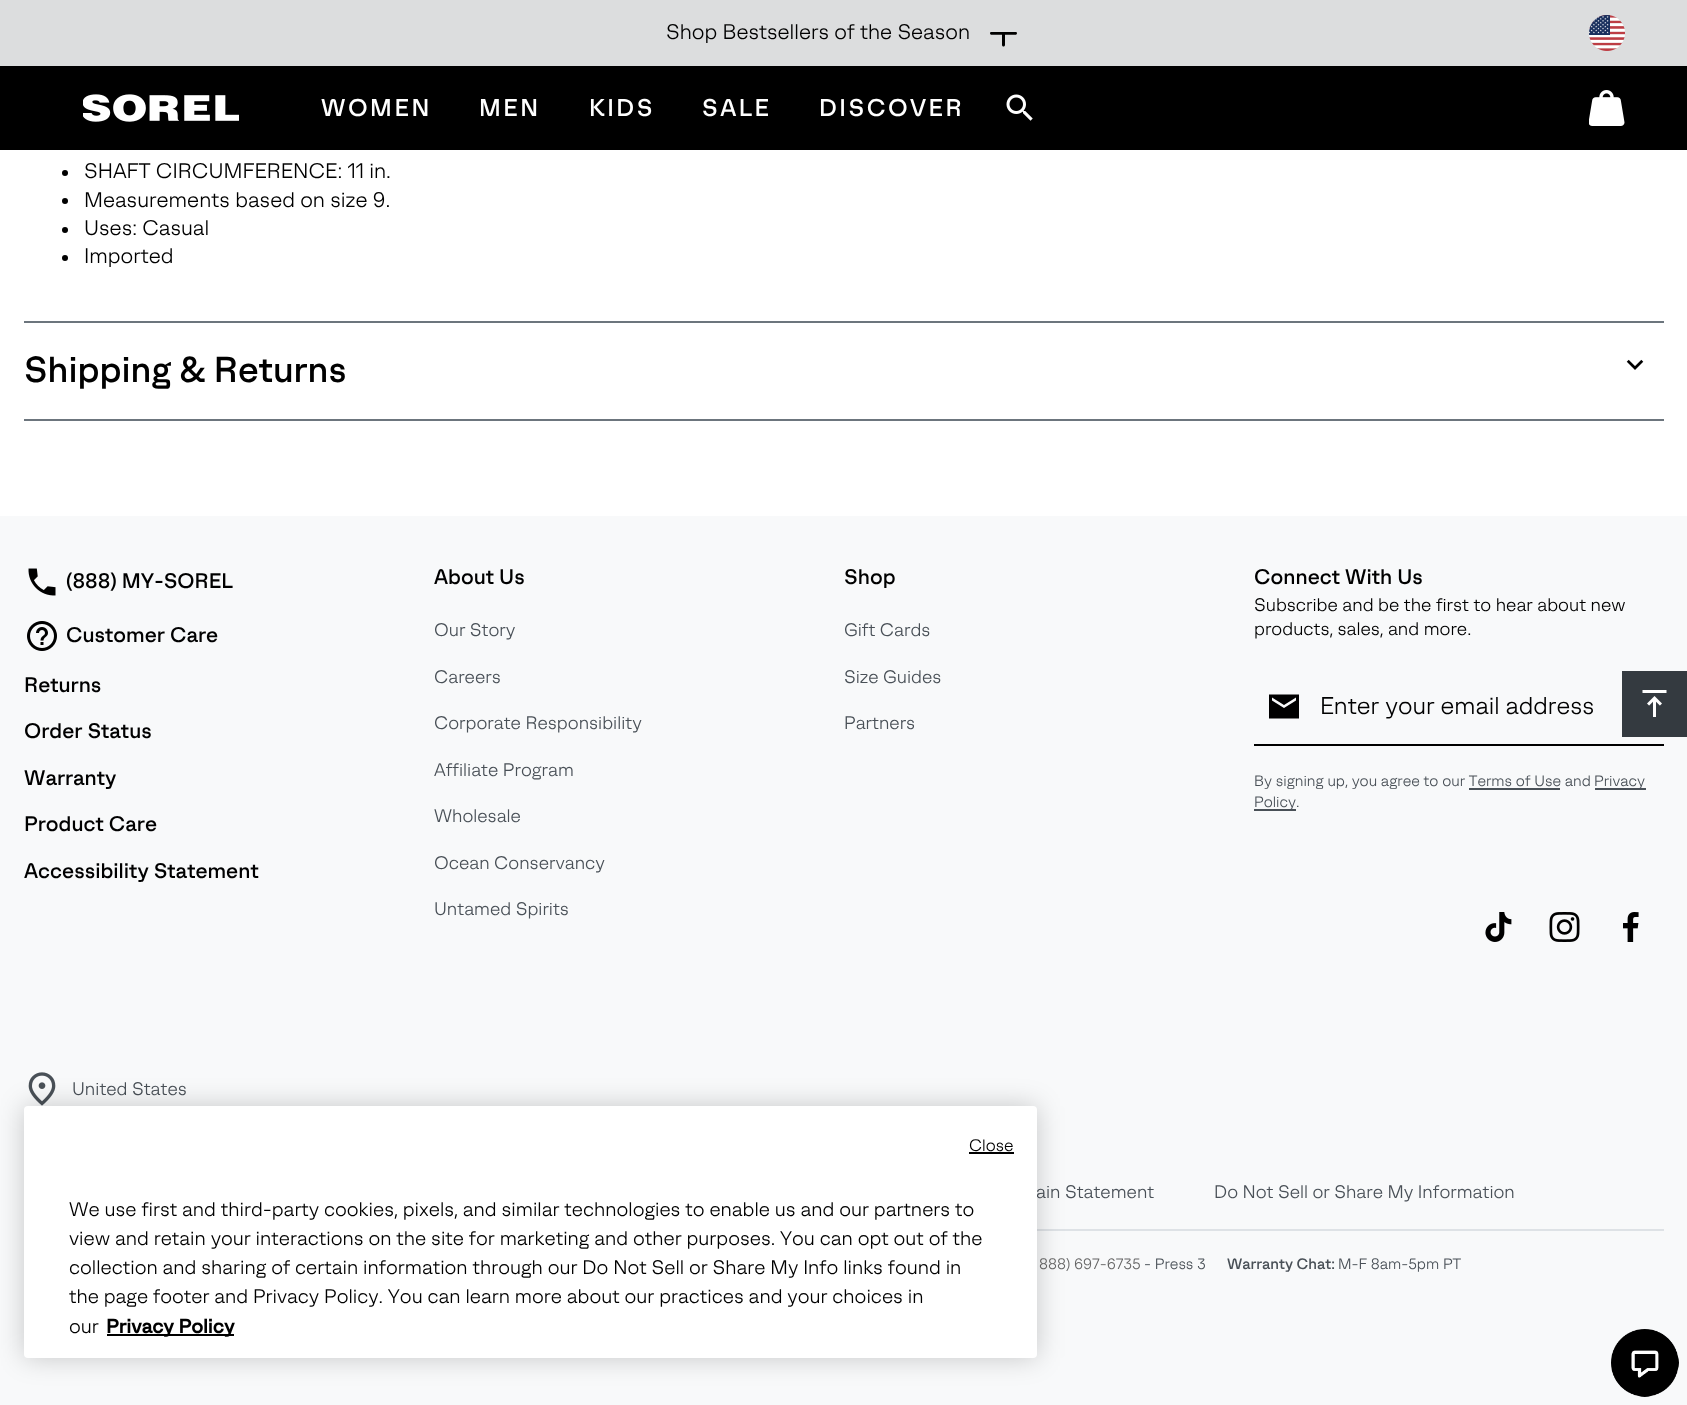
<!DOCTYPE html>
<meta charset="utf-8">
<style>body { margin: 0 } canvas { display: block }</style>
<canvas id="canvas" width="1687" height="1405"></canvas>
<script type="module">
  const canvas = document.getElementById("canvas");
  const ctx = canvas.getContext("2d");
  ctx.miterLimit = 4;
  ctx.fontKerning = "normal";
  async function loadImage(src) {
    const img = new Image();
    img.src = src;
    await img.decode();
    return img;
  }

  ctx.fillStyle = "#ffffff";
  ctx.fillRect(0, 0, 1687, 1405);
  ctx.fillStyle = "#dcddde";
  ctx.fillRect(0, 0, 1687, 66);
  ctx.font = "21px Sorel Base";
  ctx.fillStyle = "#000000";
  ctx.fillText("Shop Bestsellers of the Season", 666, 39);
  ctx.drawImage(await loadImage("img1.png"), 990, 32, 27, 15);
  ctx.drawImage(await loadImage("img2.png"), 1589, 15, 36, 36);
  ctx.fillRect(0, 66, 1687, 84);
  ctx.drawImage(await loadImage("img3.png"), 83, 94, 156, 28);
  ctx.letterSpacing = "2.5px";
  ctx.font = "500 24px Sorel Base";
  ctx.fillStyle = "#ffffff";
  ctx.fillText("WOMEN", 321, 116);
  ctx.fillText("MEN", 479, 116);
  ctx.fillText("KIDS", 589, 116);
  ctx.fillText("SALE", 702, 116);
  ctx.fillText("DISCOVER", 819, 116);
  ctx.drawImage(await loadImage("img4.png"), 1006, 94, 27, 27);
  ctx.drawImage(await loadImage("img5.png"), 1589, 90, 36, 36);
  ctx.fillStyle = "#000000";
  ctx.beginPath();
  ctx.arc(65, 173, 3, 0, Math.PI * 2);
  ctx.fill();
  ctx.letterSpacing = "0px";
  ctx.font = "21px Sorel Base";
  ctx.fillText("SHAFT CIRCUMFERENCE: 11 in.", 84, 178);
  ctx.beginPath();
  ctx.arc(65, 201, 3, 0, Math.PI * 2);
  ctx.fill();
  ctx.fillText("Measurements based on size 9.", 84, 207);
  ctx.beginPath();
  ctx.arc(65, 230, 3, 0, Math.PI * 2);
  ctx.fill();
  ctx.fillText("Uses: Casual", 84, 235);
  ctx.beginPath();
  ctx.arc(65, 258, 3, 0, Math.PI * 2);
  ctx.fill();
  ctx.fillText("Imported", 84, 263);
  ctx.fillStyle = "#6c757d";
  ctx.fillRect(24, 419, 1640, 2);
  ctx.fillRect(24, 321, 1640, 2);
  ctx.font = "500 36px Sorel Base";
  ctx.fillStyle = "#000000";
  ctx.fillText("Shipping & Returns", 24, 382);
  ctx.drawImage(await loadImage("img6.png"), 1626, 359, 18, 11);
  ctx.fillStyle = "#f8f9fa";
  ctx.fillRect(0, 516, 1687, 889);
  ctx.fillStyle = "#343a40";
  ctx.fillRect(1622, 671, 65, 66);
  ctx.drawImage(await loadImage("img7.png"), 1642, 690, 25, 27);
  ctx.drawImage(await loadImage("img8.png"), 28, 568, 28, 28);
  ctx.font = "500 21px Sorel Base";
  ctx.fillStyle = "#000000";
  ctx.fillText("(888) MY-SOREL", 66, 588);
  ctx.drawImage(await loadImage("img9.png"), 27, 621, 30, 30);
  ctx.fillText("Customer Care", 66, 642);
  ctx.fillText("Returns", 24, 692);
  ctx.fillText("Order Status", 24, 738);
  ctx.fillText("Warranty", 24, 785);
  ctx.fillText("Product Care", 24, 831);
  ctx.fillText("Accessibility Statement", 24, 878);
  ctx.fillText("About Us", 434, 584);
  ctx.font = "18px Sorel Base";
  ctx.fillStyle = "#495057";
  ctx.fillText("Our Story", 434, 636);
  ctx.fillText("Careers", 434, 683);
  ctx.fillText("Corporate Responsibility", 434, 729);
  ctx.fillText("Affiliate Program", 434, 776);
  ctx.fillText("Wholesale", 434, 822);
  ctx.fillText("Ocean Conservancy", 434, 869);
  ctx.fillText("Untamed Spirits", 434, 915);
  ctx.font = "500 21px Sorel Base";
  ctx.fillStyle = "#000000";
  ctx.fillText("Shop", 844, 584);
  ctx.font = "18px Sorel Base";
  ctx.fillStyle = "#495057";
  ctx.fillText("Gift Cards", 844, 636);
  ctx.fillText("Size Guides", 844, 683);
  ctx.fillText("Partners", 844, 729);
  ctx.font = "500 21px Sorel Base";
  ctx.fillStyle = "#000000";
  ctx.fillText("Connect With Us", 1254, 584);
  ctx.font = "18px Sorel Base";
  ctx.fillText("Subscribe and be the first to hear about new", 1254, 611);
  ctx.fillText("products, sales, and more.", 1254, 635);
  ctx.beginPath();
  ctx.moveTo(1299, 694.5);
  ctx.lineTo(1269, 694.5);
  ctx.lineTo(1269, 718.5);
  ctx.lineTo(1299, 718.5);
  ctx.closePath();
  ctx.moveTo(1296, 700.5);
  ctx.lineTo(1284, 708);
  ctx.lineTo(1272, 700.5);
  ctx.lineTo(1272, 697.5);
  ctx.lineTo(1284, 705);
  ctx.lineTo(1296, 697.5);
  ctx.closePath();
  ctx.fill();
  ctx.font = "24px Sorel Base";
  ctx.fillText("Enter your email address", 1320, 714);
  ctx.fillRect(1254, 744, 410, 2);
  ctx.font = "15px Sorel Base";
  ctx.fillStyle = "#495057";
  ctx.fillText("By signing up, you agree to our Terms of Use and", 1254, 786);
  ctx.fillRect(1595, 788, 51, 2);
  ctx.fillText("Privacy", 1594, 786);
  ctx.fillRect(1469, 788, 91, 2);
  ctx.fillRect(1254, 809, 42, 2);
  ctx.fillText("Policy.", 1254, 807);
  ctx.drawImage(await loadImage("img10.png"), 1485, 912, 27, 30);
  ctx.drawImage(await loadImage("img11.png"), 1549, 912, 31, 30);
  ctx.drawImage(await loadImage("img12.png"), 1623, 912, 16, 30);
  ctx.drawImage(await loadImage("img13.png"), 28, 1072, 28, 34);
  ctx.font = "18px Sorel Base";
  ctx.fillText("United States", 72, 1095);
  ctx.fillStyle = "#dee2e6";
  ctx.fillRect(1037, 1229, 627, 2);
  ctx.fillStyle = "#495057";
  ctx.fillText("ain Statement", 1036, 1198);
  ctx.fillText("Do Not Sell or Share My Information", 1214, 1198);
  ctx.font = "15px Sorel Base";
  ctx.fillStyle = "#666666";
  ctx.fillText("888) 697-6735", 1039, 1269);
  ctx.fillStyle = "#495057";
  ctx.fillText("- Press 3", 1144, 1269);
  ctx.font = "500 15px Sorel Base";
  ctx.fillText("Warranty Chat:", 1227, 1269);
  ctx.font = "15px Sorel Base";
  ctx.fillText("M-F 8am-5pm PT", 1338, 1269);
  ctx.fillStyle = "rgba(0, 0, 0, 0.2)";
  ctx.filter = "blur(13.5px)";
  ctx.beginPath();
  ctx.roundRect(24, 1106, 1013, 252, 4);
  ctx.fill();
  ctx.filter = "none";
  ctx.fillStyle = "#ffffff";
  ctx.beginPath();
  ctx.roundRect(24, 1106, 1013, 252, 4);
  ctx.fill();
  ctx.font = "16.5px Sorel Base";
  ctx.fillStyle = "#000000";
  ctx.fillText("Close", 969, 1151);
  ctx.fillRect(969, 1152, 45, 2);
  ctx.font = "19.5px Sorel Base";
  ctx.fillText("We use first and third-party cookies, pixels, and similar technologies to enable us and our partners to", 69, 1216);
  ctx.fillText("view and retain your interactions on the site for marketing and other purposes. You can opt out of the", 69, 1245);
  ctx.fillText("collection and sharing of certain information through our Do Not Sell or Share My Info links found in", 69, 1274);
  ctx.fillText("the page footer and Privacy Policy. You can learn more about our practices and your choices in", 69, 1303);
  ctx.fillText("our", 69, 1333);
  ctx.fillRect(107, 1334, 127, 2);
  ctx.font = "bold 19.5px Sorel Base";
  ctx.fillText("Privacy Policy", 106, 1333);
  ctx.drawImage(await loadImage("img14.png"), 1611, 1329, 68, 68);
</script>
